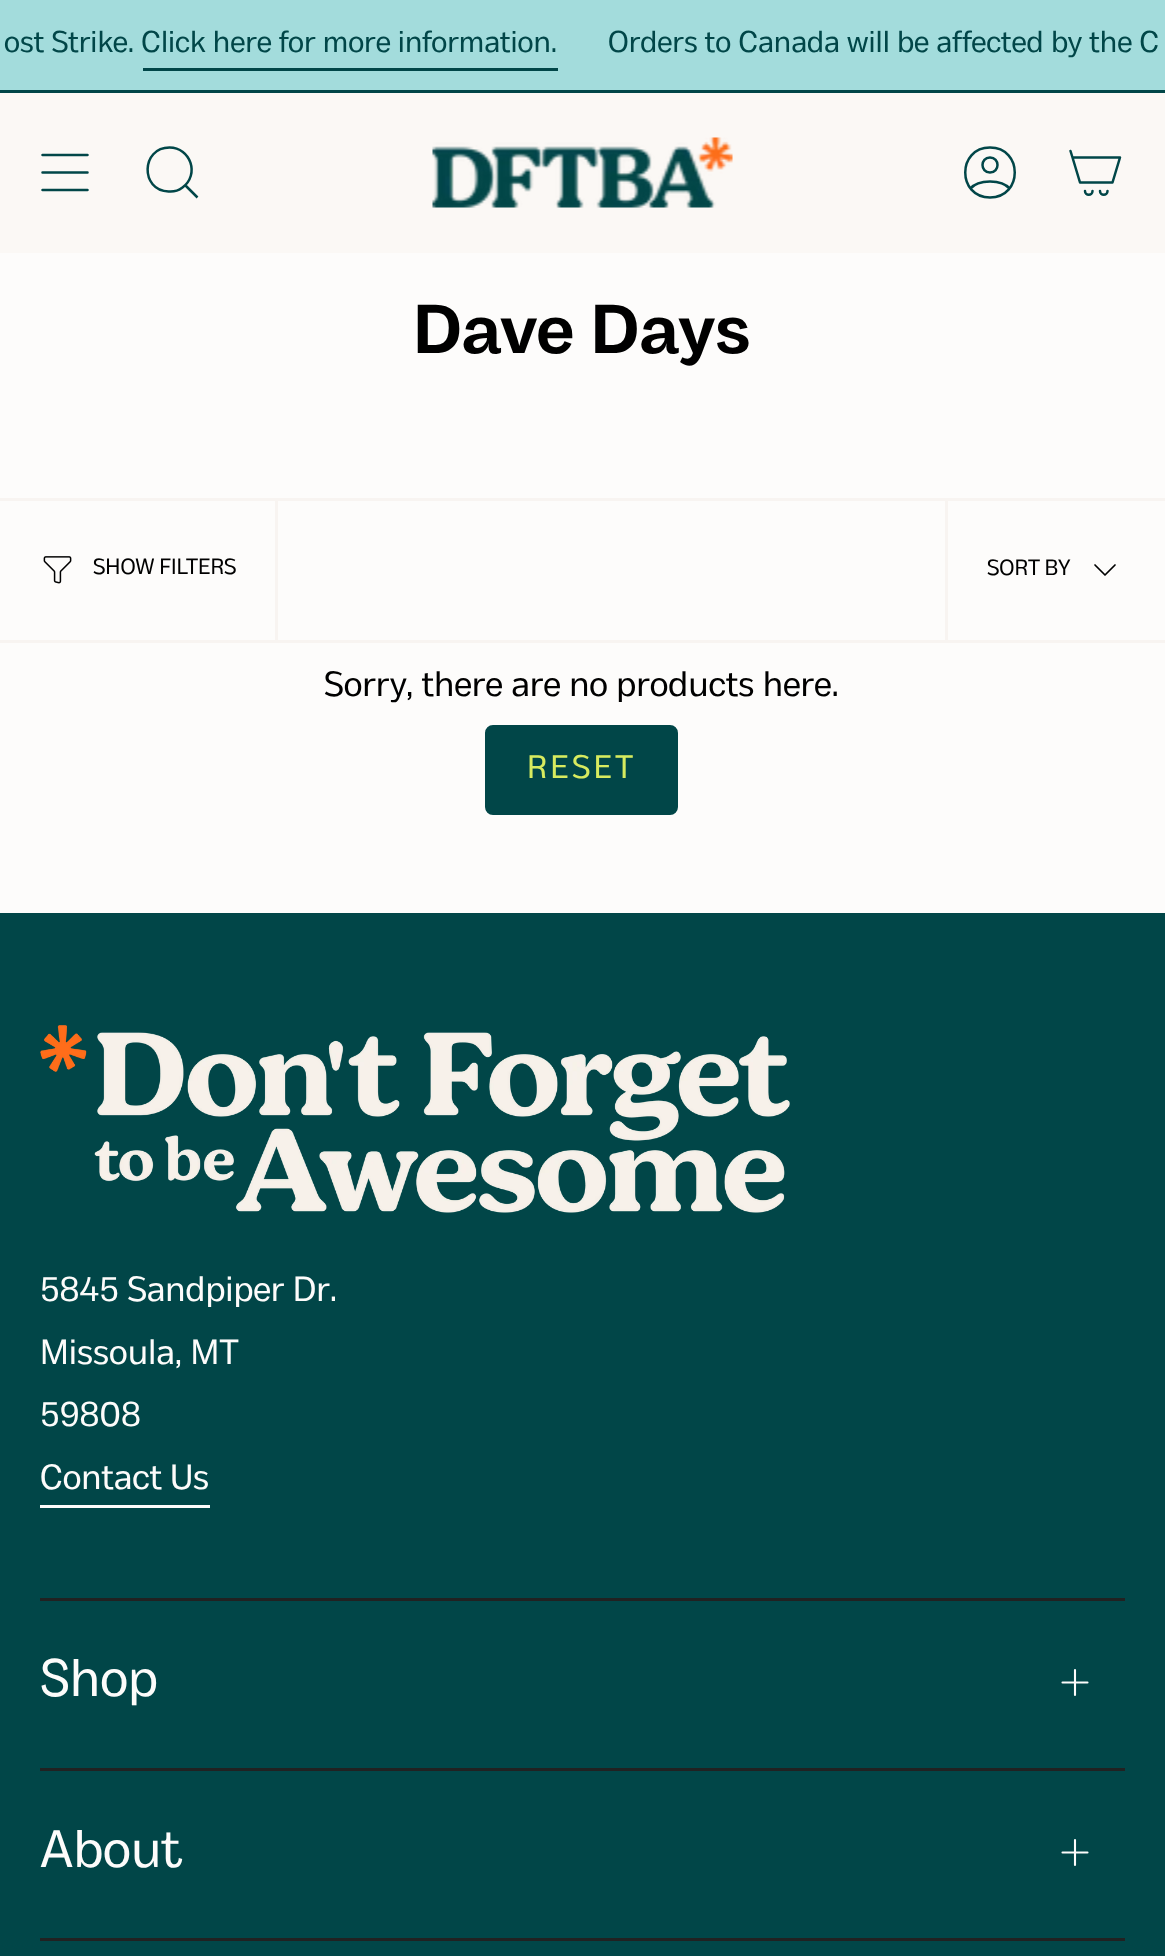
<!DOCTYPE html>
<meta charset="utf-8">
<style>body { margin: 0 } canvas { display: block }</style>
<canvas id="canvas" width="1165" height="1956"></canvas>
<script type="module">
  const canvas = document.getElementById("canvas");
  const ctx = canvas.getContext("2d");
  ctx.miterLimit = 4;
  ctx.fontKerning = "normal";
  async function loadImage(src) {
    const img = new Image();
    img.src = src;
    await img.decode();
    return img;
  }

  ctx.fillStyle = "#fdfcfb";
  ctx.fillRect(0, 0, 1165, 1956);
  ctx.fillStyle = "#a3dcdc";
  ctx.fillRect(0, 0, 1165, 90);
  ctx.fillStyle = "#014648";
  ctx.fillRect(0, 90, 1165, 3);
  ctx.font = "30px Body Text";
  ctx.fillText("ost Strike. Click here for more information.", 4, 52);
  ctx.fillRect(143, 68, 415, 3);
  ctx.fillText("Orders to Canada will be affected by the C", 608, 52);
  ctx.fillStyle = "#fbf8f5";
  ctx.fillRect(0, 93, 1165, 160);
  ctx.beginPath();
  ctx.moveTo(42.5, 155);
  ctx.lineTo(87.5, 155);
  ctx.moveTo(42.5, 172.5);
  ctx.lineTo(87.5, 172.5);
  ctx.moveTo(42.5, 190);
  ctx.lineTo(87.5, 190);
  ctx.strokeStyle = "#014648";
  ctx.lineWidth = 2.5;
  ctx.lineCap = "round";
  ctx.lineJoin = "round";
  ctx.stroke();
  ctx.beginPath();
  ctx.moveTo(169.5, 147.5);
  ctx.bezierCurveTo(190.5, 147.5, 200, 174.5, 182.5, 187.5);
  ctx.bezierCurveTo(178.5, 190.5, 173.5, 192, 168.5, 191.5);
  ctx.bezierCurveTo(140, 190.5, 141, 147.5, 169.5, 147.5);
  ctx.closePath();
  ctx.moveTo(185.5, 185.5);
  ctx.lineTo(197.5, 197.5);
  ctx.lineCap = "butt";
  ctx.lineJoin = "miter";
  ctx.stroke();
  ctx.drawImage(await loadImage("img1.png"), 432, 137, 301, 71);
  ctx.beginPath();
  ctx.moveTo(990, 147.5);
  ctx.bezierCurveTo(957, 147.5, 957, 197.5, 990, 197.5);
  ctx.bezierCurveTo(1023, 197.5, 1023, 147.5, 990, 147.5);
  ctx.closePath();
  ctx.moveTo(970.5, 188.5);
  ctx.bezierCurveTo(978, 179, 1002, 179, 1009.5, 188.5);
  ctx.moveTo(990, 172.5);
  ctx.bezierCurveTo(1000, 172.5, 1000, 157.5, 990, 157.5);
  ctx.bezierCurveTo(980, 157.5, 980, 172.5, 990, 172.5);
  ctx.closePath();
  ctx.lineCap = "round";
  ctx.lineJoin = "round";
  ctx.stroke();
  ctx.beginPath();
  ctx.moveTo(1072.5, 157.5);
  ctx.lineTo(1120, 157.5);
  ctx.lineTo(1112.5, 182.5);
  ctx.lineTo(1080, 182.5);
  ctx.closePath();
  ctx.moveTo(1072.5, 157.5);
  ctx.lineTo(1070.5, 151);
  ctx.moveTo(1092.5, 191);
  ctx.bezierCurveTo(1092.5, 196, 1085, 196, 1085, 191);
  ctx.moveTo(1107.5, 191);
  ctx.bezierCurveTo(1107.5, 196, 1100, 196, 1100, 191);
  ctx.stroke();
  ctx.font = "bold 69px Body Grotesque";
  ctx.fillStyle = "#000000";
  ctx.fillText("Dave Days", 413, 353);
  ctx.fillStyle = "#f8f4f1";
  ctx.fillRect(0, 498, 1165, 3);
  ctx.fillRect(0, 640, 1165, 3);
  ctx.fillRect(275, 500, 3, 140);
  ctx.drawImage(await loadImage("img2.png"), 43, 556, 29, 28);
  ctx.font = "22px Body Text";
  ctx.fillStyle = "#000000";
  ctx.fillText("SHOW FILTERS", 93, 574);
  ctx.fillStyle = "#f8f4f1";
  ctx.fillRect(945, 500, 3, 140);
  ctx.fillStyle = "#000000";
  ctx.fillText("SORT BY", 987, 575);
  ctx.beginPath();
  ctx.moveTo(1095, 565);
  ctx.lineTo(1105, 575);
  ctx.lineTo(1115, 565);
  ctx.strokeStyle = "#000000";
  ctx.lineWidth = 1.7;
  ctx.stroke();
  ctx.font = "35px Body Text";
  ctx.fillText("Sorry, there are no products here.", 324, 696);
  ctx.fillStyle = "#014648";
  ctx.beginPath();
  ctx.roundRect(486.5, 726.5, 190, 87, 6.5);
  ctx.fill();
  ctx.strokeStyle = "#014648";
  ctx.lineWidth = 3;
  ctx.lineJoin = "miter";
  ctx.stroke();
  ctx.letterSpacing = "3.25px";
  ctx.font = "32.5px Body Text";
  ctx.fillStyle = "#d7eb5f";
  ctx.fillText("RESET", 527, 778);
  ctx.fillStyle = "#014648";
  ctx.fillRect(0, 913, 1165, 1043);
  ctx.drawImage(await loadImage("img3.png"), 40, 1025, 750, 188);
  ctx.letterSpacing = "0px";
  ctx.font = "35px Body Text";
  ctx.fillStyle = "#fdfcfb";
  ctx.fillText("5845 Sandpiper Dr.", 40, 1301);
  ctx.fillText("Missoula, MT", 40, 1364);
  ctx.fillText("59808", 40, 1426);
  ctx.fillText("Contact Us", 40, 1489);
  ctx.fillRect(40, 1505, 170, 3);
  ctx.fillStyle = "#212121";
  ctx.fillRect(40, 1598, 1085, 3);
  ctx.font = "52.5px Body Grotesque";
  ctx.fillStyle = "#fdfcfb";
  ctx.fillText("Shop", 40, 1696);
  ctx.beginPath();
  ctx.moveTo(1062.5, 1682.5);
  ctx.lineTo(1075, 1682.5);
  ctx.moveTo(1087.5, 1682.5);
  ctx.lineTo(1075, 1682.5);
  ctx.moveTo(1075, 1682.5);
  ctx.lineTo(1075, 1670);
  ctx.moveTo(1075, 1682.5);
  ctx.lineTo(1075, 1695);
  ctx.strokeStyle = "#fdfcfb";
  ctx.lineWidth = 2.1;
  ctx.lineJoin = "round";
  ctx.stroke();
  ctx.fillStyle = "#212121";
  ctx.fillRect(40, 1768, 1085, 3);
  ctx.fillRect(40, 1938, 1085, 3);
  ctx.fillStyle = "#fdfcfb";
  ctx.fillText("About", 40, 1867);
  ctx.beginPath();
  ctx.moveTo(1062.5, 1852.5);
  ctx.lineTo(1075, 1852.5);
  ctx.moveTo(1087.5, 1852.5);
  ctx.lineTo(1075, 1852.5);
  ctx.moveTo(1075, 1852.5);
  ctx.lineTo(1075, 1840);
  ctx.moveTo(1075, 1852.5);
  ctx.lineTo(1075, 1865);
  ctx.stroke();
</script>
